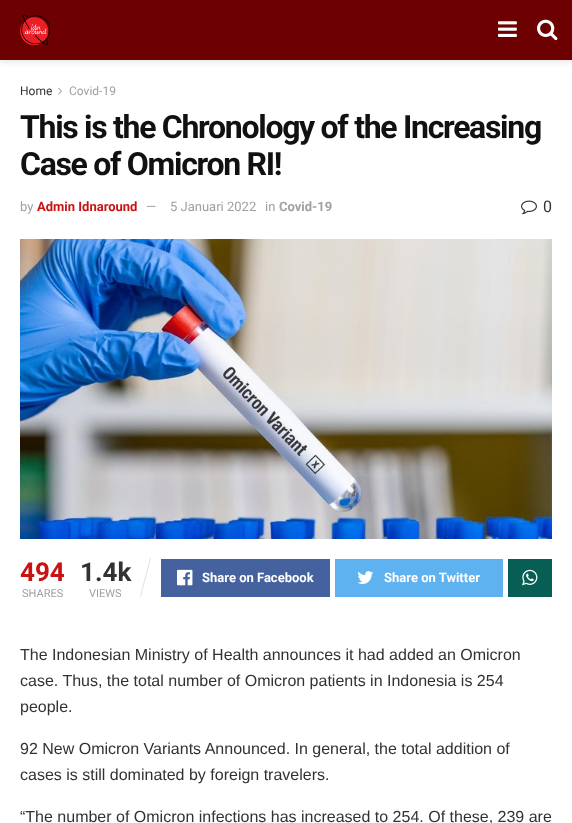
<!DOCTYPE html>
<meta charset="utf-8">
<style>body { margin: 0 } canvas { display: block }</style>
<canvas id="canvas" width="572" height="823"></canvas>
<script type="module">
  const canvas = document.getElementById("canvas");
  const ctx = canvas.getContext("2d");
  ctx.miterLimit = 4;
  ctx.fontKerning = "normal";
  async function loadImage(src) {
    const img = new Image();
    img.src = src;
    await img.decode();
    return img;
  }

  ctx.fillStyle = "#ffffff";
  ctx.fillRect(0, 0, 572, 823);
  ctx.fillStyle = "rgba(0, 0, 0, 0.1)";
  ctx.filter = "blur(3px)";
  ctx.beginPath();
  ctx.rect(0, 2, 572, 60);
  ctx.fill();
  ctx.filter = "none";
  ctx.fillStyle = "#6d0000";
  ctx.fillRect(0, 0, 572, 60);
  ctx.drawImage(await loadImage("img1.png"), 20, 14, 30, 31);
  ctx.drawImage(await loadImage("img2.png"), 498, 21, 19, 16);
  ctx.drawImage(await loadImage("img3.png"), 537, 19, 21, 22);
  ctx.font = "12px Roboto";
  ctx.fillStyle = "#323232";
  ctx.fillText("Home", 20, 95);
  ctx.drawImage(await loadImage("img4.png"), 58, 87, 4, 8);
  ctx.fillStyle = "#a0a0a0";
  ctx.fillText("Covid-19", 69, 95);
  ctx.letterSpacing = "-1.3px";
  ctx.font = "bold 32px Roboto";
  ctx.fillStyle = "#111111";
  ctx.fillText("This is the Chronology of the Increasing", 20, 138);
  ctx.fillText("Case of Omicron RI!", 20, 175);
  ctx.letterSpacing = "0px";
  ctx.font = "13px Roboto";
  ctx.fillStyle = "#a0a0a0";
  ctx.fillText("by", 20, 211);
  ctx.font = "bold 13px Roboto";
  ctx.fillStyle = "#c91212";
  ctx.fillText("Admin Idnaround", 37, 211);
  ctx.font = "13px Roboto";
  ctx.fillStyle = "#a0a0a0";
  ctx.fillText("—", 146, 211);
  ctx.fillText("5 Januari 2022", 170, 211);
  ctx.fillText("in", 265, 211);
  ctx.font = "bold 13px Roboto";
  ctx.fillText("Covid-19", 279, 211);
  ctx.drawImage(await loadImage("img5.png"), 521, 200, 16, 15);
  ctx.font = "16px Roboto";
  ctx.fillStyle = "#323232";
  ctx.fillText("0", 543, 212);
  ctx.drawImage(await loadImage("img6.png"), 20, 239, 532, 300);
  ctx.font = "bold 26px Roboto";
  ctx.fillStyle = "#c91212";
  ctx.fillText("494", 20, 581);
  ctx.font = "11px Roboto";
  ctx.fillStyle = "#a0a0a0";
  ctx.fillText("SHARES", 22, 597);
  ctx.font = "bold 26px Roboto";
  ctx.fillStyle = "#323232";
  ctx.fillText("1.4k", 80, 581);
  ctx.fillStyle = "#e0e0e0";
  ctx.beginPath();
  ctx.moveTo(150, 558);
  ctx.lineTo(151, 558);
  ctx.lineTo(141, 596.5);
  ctx.lineTo(140, 596.5);
  ctx.closePath();
  ctx.fill();
  ctx.font = "11px Roboto";
  ctx.fillStyle = "#a0a0a0";
  ctx.fillText("VIEWS", 89, 597);
  ctx.fillStyle = "#45629f";
  ctx.fillRect(161, 559, 169, 38);
  ctx.drawImage(await loadImage("img7.png"), 177, 569, 16, 17);
  ctx.font = "bold 13px Roboto";
  ctx.fillStyle = "#ffffff";
  ctx.fillText("Share on Facebook", 202, 582);
  ctx.fillStyle = "#5eb2ef";
  ctx.fillRect(335, 559, 168, 38);
  ctx.drawImage(await loadImage("img8.png"), 357, 571, 17, 13);
  ctx.fillStyle = "#ffffff";
  ctx.fillText("Share on Twitter", 384, 582);
  ctx.fillStyle = "#075e54";
  ctx.fillRect(508, 559, 44, 38);
  ctx.drawImage(await loadImage("img9.png"), 522, 569, 16, 17);
  ctx.font = "16px Liberation Sans";
  ctx.fillStyle = "#323232";
  ctx.fillText("The Indonesian Ministry of Health announces it had added an Omicron", 20, 660);
  ctx.fillText("case. Thus, the total number of Omicron patients in Indonesia is 254", 20, 686);
  ctx.fillText("people.", 20, 712);
  ctx.fillText("92 New Omicron Variants Announced. In general, the total addition of", 20, 754);
  ctx.fillText("cases is still dominated by foreign travelers.", 20, 780);
  ctx.fillText("“The number of Omicron infections has increased to 254. Of these, 239 are", 20, 822);
</script>
